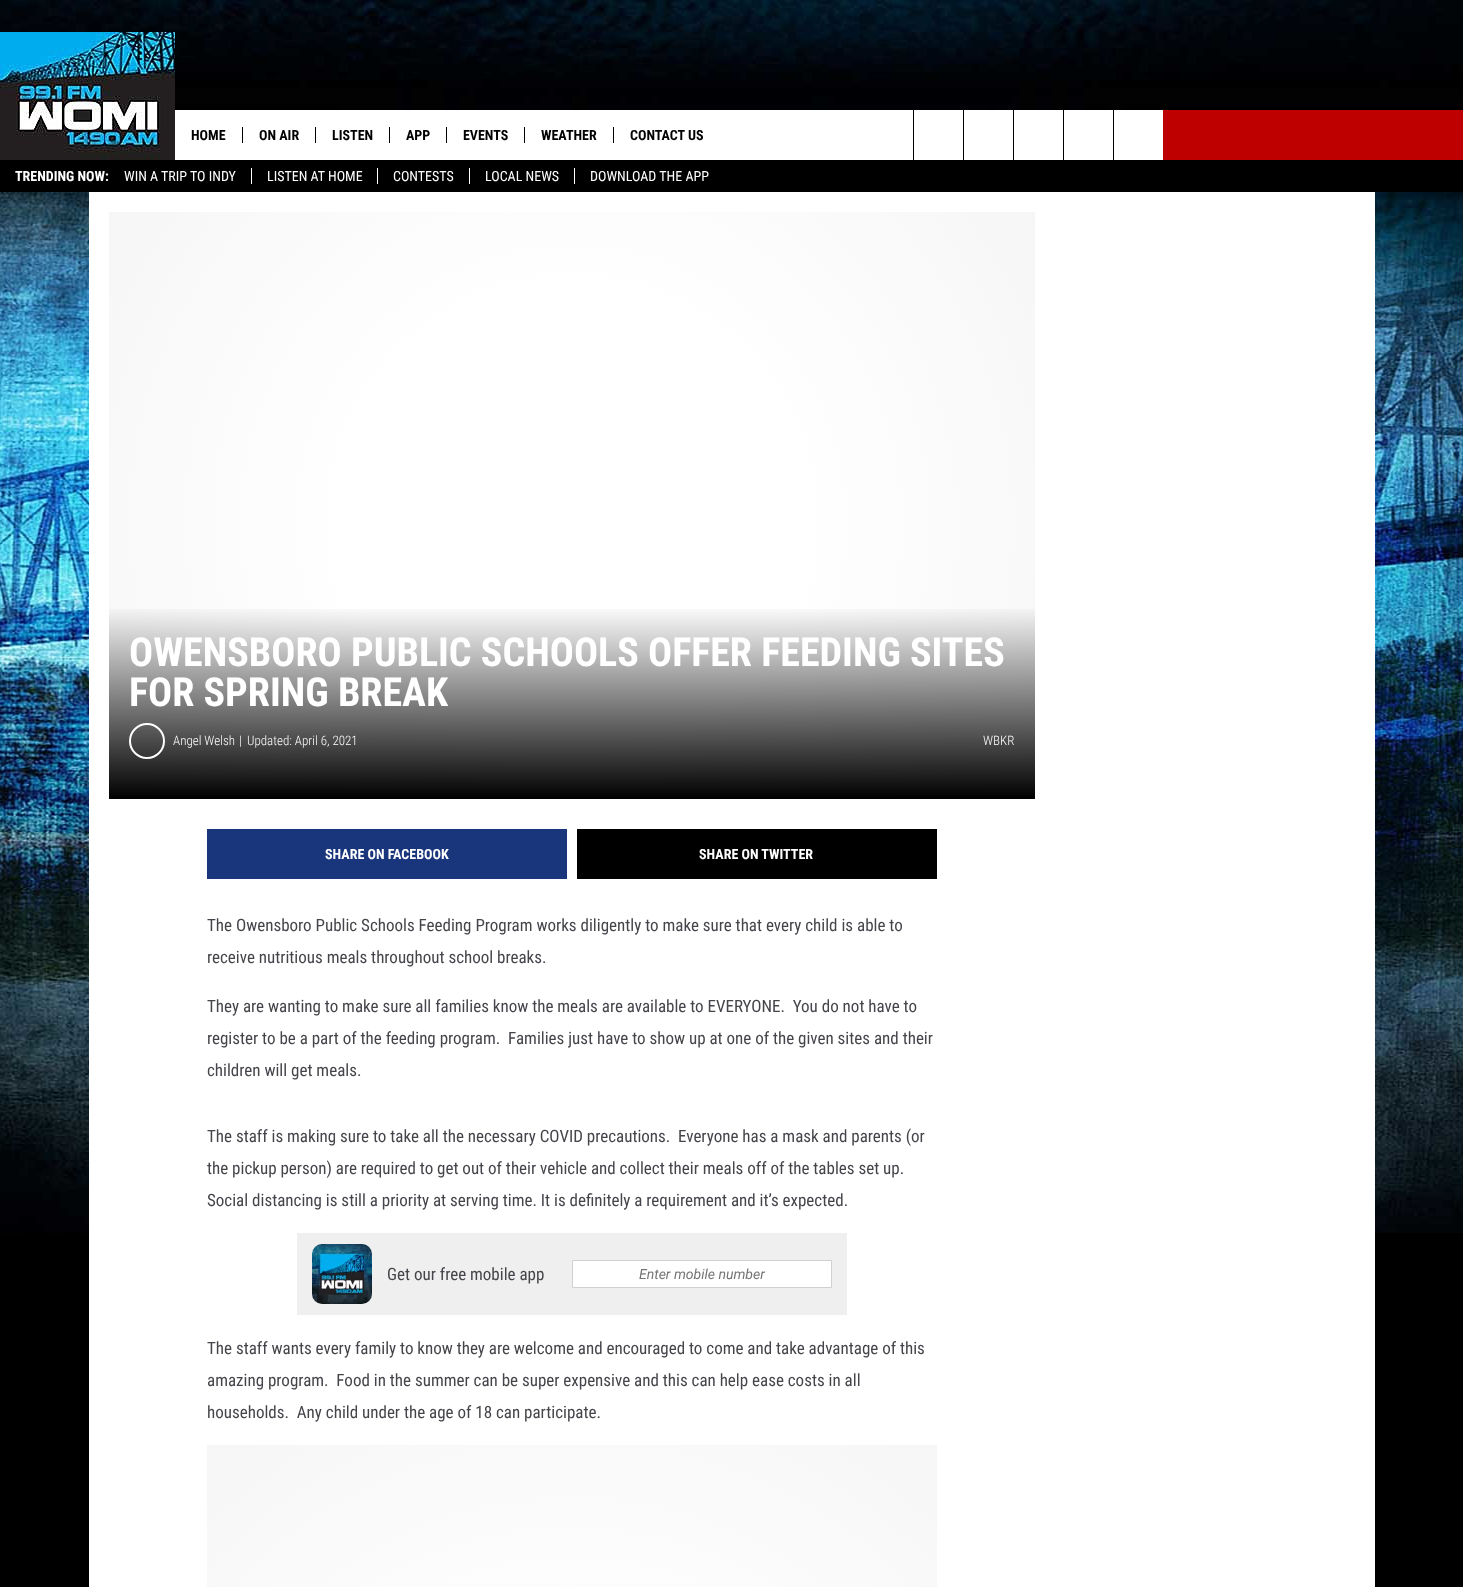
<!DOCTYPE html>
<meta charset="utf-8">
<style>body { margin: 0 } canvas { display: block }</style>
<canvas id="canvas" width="1463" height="1587"></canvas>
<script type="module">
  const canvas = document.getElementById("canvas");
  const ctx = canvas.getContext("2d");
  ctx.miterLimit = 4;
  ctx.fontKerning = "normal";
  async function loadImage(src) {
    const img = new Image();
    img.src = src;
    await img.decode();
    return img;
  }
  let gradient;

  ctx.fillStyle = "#000000";
  ctx.fillRect(0, 0, 1463, 1587);
  ctx.drawImage(await loadImage("img1.png"), 0, 192, 1463, 1041);
  ctx.drawImage(await loadImage("img2.png"), 0, 0, 1463, 110);
  ctx.drawImage(await loadImage("img3.png"), 0, 32, 175, 128);
  ctx.fillStyle = "#ffffff";
  ctx.fillRect(175, 110, 988, 50);
  ctx.font = "bold 14px Roboto Condensed";
  ctx.fillStyle = "#000000";
  ctx.fillText("HOME", 191, 140);
  ctx.fillRect(242, 127, 1, 16);
  ctx.fillText("ON AIR", 259, 140);
  ctx.fillRect(315, 127, 1, 16);
  ctx.fillText("LISTEN", 332, 140);
  ctx.fillRect(389, 127, 1, 16);
  ctx.fillText("APP", 406, 140);
  ctx.fillRect(446, 127, 1, 16);
  ctx.fillText("EVENTS", 463, 140);
  ctx.fillRect(524, 127, 1, 16);
  ctx.fillText("WEATHER", 541, 140);
  ctx.fillRect(613, 127, 1, 16);
  ctx.fillText("CONTACT US", 630, 140);
  ctx.fillRect(913, 110, 1, 50);
  ctx.fillRect(963, 110, 1, 50);
  ctx.fillRect(1013, 110, 1, 50);
  ctx.fillRect(1063, 110, 1, 50);
  ctx.fillRect(1113, 110, 1, 50);
  ctx.fillStyle = "#bf0000";
  ctx.fillRect(1163, 110, 300, 50);
  ctx.fillStyle = "#ffffff";
  ctx.fillText("TRENDING NOW:", 15, 181);
  ctx.font = "14px Roboto Condensed";
  ctx.fillText("WIN A TRIP TO INDY", 124, 181);
  ctx.fillText("LISTEN AT HOME", 267, 181);
  ctx.fillRect(251, 168, 1, 16);
  ctx.fillText("CONTESTS", 393, 181);
  ctx.fillRect(377, 168, 1, 16);
  ctx.fillText("LOCAL NEWS", 485, 181);
  ctx.fillRect(469, 168, 1, 16);
  ctx.fillText("DOWNLOAD THE APP", 590, 181);
  ctx.fillRect(574, 168, 1, 16);
  ctx.fillRect(89, 192, 1286, 1395);
  gradient = ctx.createRadialGradient(572, 521, 0, 572, 521, 556);
  gradient.addColorStop(0.4, "#ffffff");
  gradient.addColorStop(1, "#f7f6f7");
  ctx.fillStyle = gradient;
  ctx.fillRect(109, 212, 926, 586);
  gradient = ctx.createLinearGradient(572, 605, 572, 799);
  gradient.addColorStop(0, "rgba(0, 0, 0, 0)");
  gradient.addColorStop(1, "#000000");
  ctx.fillStyle = gradient;
  ctx.fillRect(109, 609, 926, 190);
  ctx.font = "bold 40px Roboto Condensed";
  ctx.fillStyle = "#ffffff";
  ctx.fillText("OWENSBORO PUBLIC SCHOOLS OFFER FEEDING SITES", 129, 666);
  ctx.fillText("FOR SPRING BREAK", 129, 706);
  ctx.beginPath();
  ctx.arc(147, 741, 17, 0, Math.PI * 2);
  ctx.strokeStyle = "#ffffff";
  ctx.lineWidth = 2;
  ctx.stroke();
  ctx.font = "300 13px Roboto Condensed";
  ctx.fillText("Angel Welsh", 173, 745);
  ctx.fillText("|", 239, 745);
  ctx.fillText("Updated: April 6, 2021", 247, 745);
  ctx.fillText("WBKR", 983, 745);
  ctx.fillStyle = "#19367c";
  ctx.fillRect(207, 829, 360, 50);
  ctx.font = "bold 14px Roboto Condensed";
  ctx.fillStyle = "#ffffff";
  ctx.fillText("SHARE ON FACEBOOK", 325, 859);
  ctx.fillStyle = "#000000";
  ctx.fillRect(577, 829, 360, 50);
  ctx.fillStyle = "#ffffff";
  ctx.fillText("SHARE ON TWITTER", 699, 859);
  ctx.font = "17px Roboto Condensed";
  ctx.fillStyle = "#45444a";
  ctx.fillText("The Owensboro Public Schools Feeding Program works diligently to make sure that every child is able to", 207, 931);
  ctx.fillText("receive nutritious meals throughout school breaks.", 207, 963);
  ctx.fillText("They are wanting to make sure all families know the meals are available to EVERYONE.  You do not have to", 207, 1012);
  ctx.fillText("register to be a part of the feeding program.  Families just have to show up at one of the given sites and their", 207, 1044);
  ctx.fillText("children will get meals.", 207, 1076);
  ctx.fillText("The staff is making sure to take all the necessary COVID precautions.", 207, 1142);
  ctx.fillText("Everyone has a mask and parents (or", 678, 1142);
  ctx.fillText("the pickup person) are required to get out of their vehicle and collect their meals off of the tables set up.", 207, 1174);
  ctx.fillText("Social distancing is still a priority at serving time. It is definitely a requirement and it’s expected.", 207, 1206);
  ctx.fillStyle = "#efefef";
  ctx.fillRect(297, 1233, 550, 82);
  ctx.drawImage(await loadImage("img4.png"), 312, 1244, 60, 60);
  ctx.fillStyle = "#45444a";
  ctx.fillText("Get our free mobile app", 387, 1280);
  ctx.fillStyle = "#ffffff";
  ctx.beginPath();
  ctx.rect(572.5, 1260.5, 259, 27);
  ctx.fill();
  ctx.strokeStyle = "#d1d0d2";
  ctx.lineWidth = 1;
  ctx.stroke();
  ctx.font = "italic 14px Roboto";
  ctx.fillStyle = "#757575";
  ctx.fillText("Enter mobile number", 639, 1279);
  ctx.font = "17px Roboto Condensed";
  ctx.fillStyle = "#45444a";
  ctx.fillText("The staff wants every family to know they are welcome and encouraged to come and take advantage of this", 207, 1354);
  ctx.fillText("amazing program.  Food in the summer can be super expensive and this can help ease costs in all", 207, 1386);
  ctx.fillText("households.  Any child under the age of 18 can participate.", 207, 1418);
  gradient = ctx.createRadialGradient(572, 1908, 0, 572, 1908, 589);
  gradient.addColorStop(0.4, "#ffffff");
  gradient.addColorStop(1, "#f6f6f6");
  ctx.fillStyle = gradient;
  ctx.fillRect(207, 1445, 730, 142);
</script>
